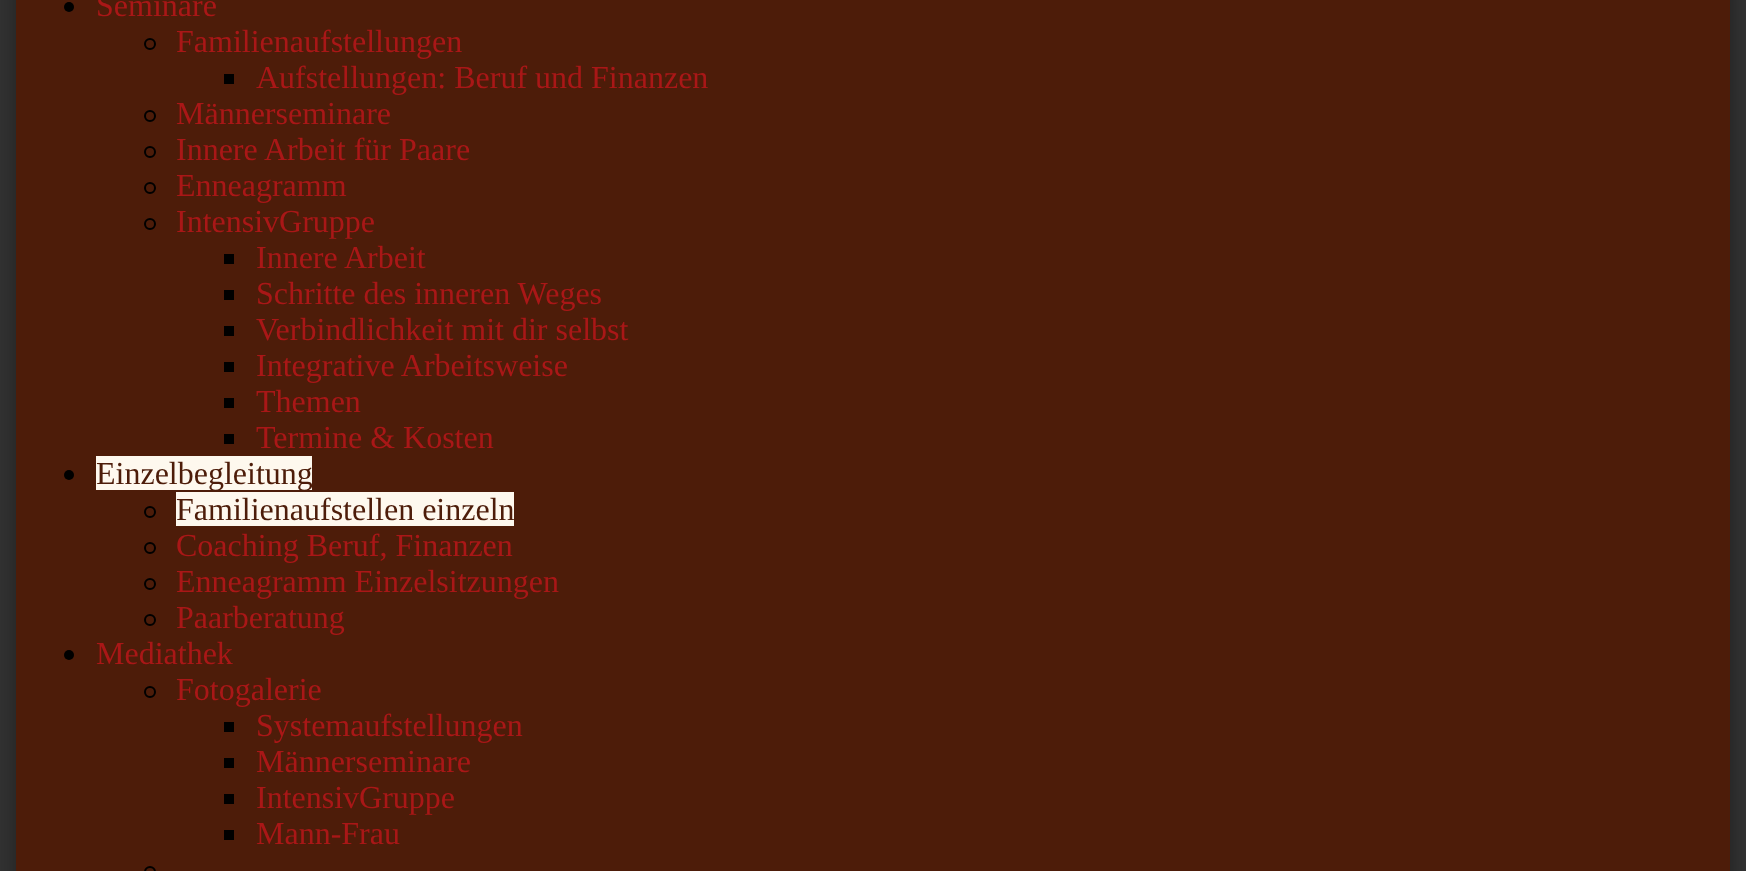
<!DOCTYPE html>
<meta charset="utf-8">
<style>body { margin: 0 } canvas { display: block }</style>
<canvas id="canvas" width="1746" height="871"></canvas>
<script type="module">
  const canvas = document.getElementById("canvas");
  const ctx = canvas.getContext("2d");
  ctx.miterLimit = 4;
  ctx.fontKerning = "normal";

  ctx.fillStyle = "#333333";
  ctx.fillRect(0, 0, 1746, 871);
  ctx.fillStyle = "rgba(0, 0, 0, 0.75)";
  ctx.filter = "blur(16px)";
  ctx.beginPath();
  ctx.roundRect(26, -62, 1694, 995, 14);
  ctx.fill();
  ctx.filter = "none";
  ctx.fillStyle = "#4d1c09";
  ctx.fillRect(16, 0, 1714, 871);
  ctx.fillStyle = "#000000";
  ctx.beginPath();
  ctx.arc(69, 7, 5, 0, Math.PI * 2);
  ctx.fill();
  ctx.font = "32px Liberation Serif";
  ctx.fillStyle = "#a91717";
  ctx.fillText("Seminare", 96, 16);
  ctx.beginPath();
  ctx.arc(150, 44, 5, 0, Math.PI * 2);
  ctx.strokeStyle = "#000000";
  ctx.lineWidth = 2;
  ctx.stroke();
  ctx.fillText("Familienaufstellungen", 176, 52);
  ctx.fillStyle = "#000000";
  ctx.fillRect(224, 74, 10, 10);
  ctx.fillStyle = "#a91717";
  ctx.fillText("Aufstellungen: Beruf und Finanzen", 256, 88);
  ctx.beginPath();
  ctx.arc(150, 116, 5, 0, Math.PI * 2);
  ctx.stroke();
  ctx.fillText("Männerseminare", 176, 124);
  ctx.beginPath();
  ctx.arc(150, 152, 5, 0, Math.PI * 2);
  ctx.stroke();
  ctx.fillText("Innere Arbeit für Paare", 176, 160);
  ctx.beginPath();
  ctx.arc(150, 188, 5, 0, Math.PI * 2);
  ctx.stroke();
  ctx.fillText("Enneagramm", 176, 196);
  ctx.beginPath();
  ctx.arc(150, 224, 5, 0, Math.PI * 2);
  ctx.stroke();
  ctx.fillText("IntensivGruppe", 176, 232);
  ctx.fillStyle = "#000000";
  ctx.fillRect(224, 254, 10, 10);
  ctx.fillStyle = "#a91717";
  ctx.fillText("Innere Arbeit", 256, 268);
  ctx.fillStyle = "#000000";
  ctx.fillRect(224, 290, 10, 10);
  ctx.fillStyle = "#a91717";
  ctx.fillText("Schritte des inneren Weges", 256, 304);
  ctx.fillStyle = "#000000";
  ctx.fillRect(224, 326, 10, 10);
  ctx.fillStyle = "#a91717";
  ctx.fillText("Verbindlichkeit mit dir selbst", 256, 340);
  ctx.fillStyle = "#000000";
  ctx.fillRect(224, 362, 10, 10);
  ctx.fillStyle = "#a91717";
  ctx.fillText("Integrative Arbeitsweise", 256, 376);
  ctx.fillStyle = "#000000";
  ctx.fillRect(224, 398, 10, 10);
  ctx.fillStyle = "#a91717";
  ctx.fillText("Themen", 256, 412);
  ctx.fillStyle = "#000000";
  ctx.fillRect(224, 434, 10, 10);
  ctx.fillStyle = "#a91717";
  ctx.fillText("Termine & Kosten", 256, 448);
  ctx.fillStyle = "#000000";
  ctx.beginPath();
  ctx.arc(69, 475, 5, 0, Math.PI * 2);
  ctx.fill();
  ctx.fillStyle = "#fef8ee";
  ctx.fillRect(96, 456, 216, 34);
  ctx.fillStyle = "#4d1c09";
  ctx.fillText("Einzelbegleitung", 96, 484);
  ctx.beginPath();
  ctx.arc(150, 512, 5, 0, Math.PI * 2);
  ctx.stroke();
  ctx.fillStyle = "#fef8ee";
  ctx.fillRect(176, 492, 338, 34);
  ctx.fillStyle = "#4d1c09";
  ctx.fillText("Familienaufstellen einzeln", 176, 520);
  ctx.beginPath();
  ctx.arc(150, 548, 5, 0, Math.PI * 2);
  ctx.stroke();
  ctx.fillStyle = "#a91717";
  ctx.fillText("Coaching Beruf, Finanzen", 176, 556);
  ctx.beginPath();
  ctx.arc(150, 584, 5, 0, Math.PI * 2);
  ctx.stroke();
  ctx.fillText("Enneagramm Einzelsitzungen", 176, 592);
  ctx.beginPath();
  ctx.arc(150, 620, 5, 0, Math.PI * 2);
  ctx.stroke();
  ctx.fillText("Paarberatung", 176, 628);
  ctx.fillStyle = "#000000";
  ctx.beginPath();
  ctx.arc(69, 655, 5, 0, Math.PI * 2);
  ctx.fill();
  ctx.fillStyle = "#a91717";
  ctx.fillText("Mediathek", 96, 664);
  ctx.beginPath();
  ctx.arc(150, 692, 5, 0, Math.PI * 2);
  ctx.stroke();
  ctx.fillText("Fotogalerie", 176, 700);
  ctx.fillStyle = "#000000";
  ctx.fillRect(224, 722, 10, 10);
  ctx.fillStyle = "#a91717";
  ctx.fillText("Systemaufstellungen", 256, 736);
  ctx.fillStyle = "#000000";
  ctx.fillRect(224, 758, 10, 10);
  ctx.fillStyle = "#a91717";
  ctx.fillText("Männerseminare", 256, 772);
  ctx.fillStyle = "#000000";
  ctx.fillRect(224, 794, 10, 10);
  ctx.fillStyle = "#a91717";
  ctx.fillText("IntensivGruppe", 256, 808);
  ctx.fillStyle = "#000000";
  ctx.fillRect(224, 830, 10, 10);
  ctx.fillStyle = "#a91717";
  ctx.fillText("Mann-Frau", 256, 844);
  ctx.beginPath();
  ctx.arc(150, 872, 5, 0, Math.PI * 2);
  ctx.stroke();
</script>
